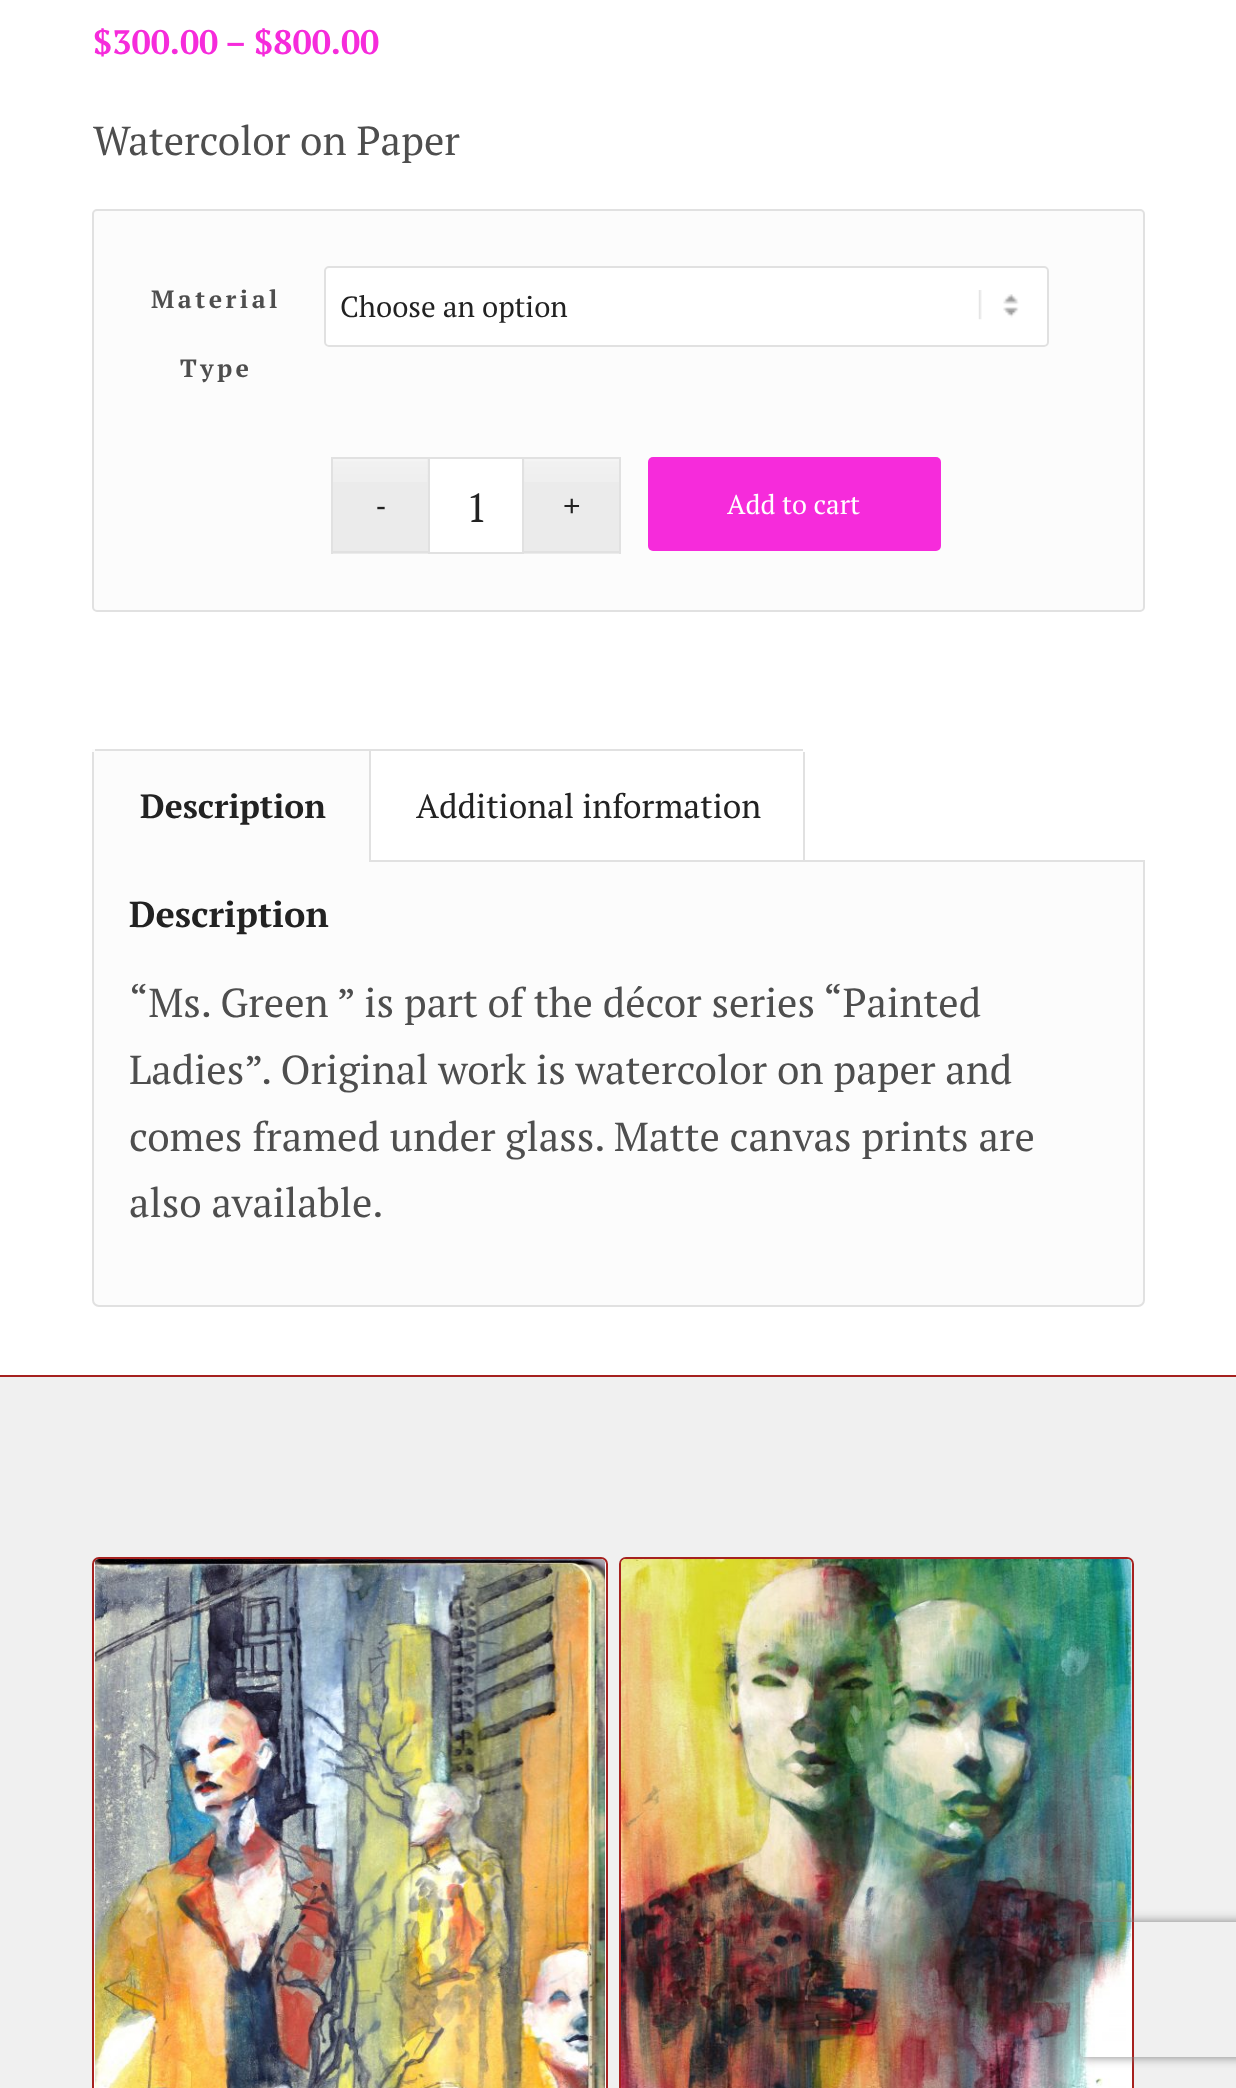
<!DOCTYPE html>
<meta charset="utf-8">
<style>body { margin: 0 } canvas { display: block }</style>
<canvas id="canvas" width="1236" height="2088"></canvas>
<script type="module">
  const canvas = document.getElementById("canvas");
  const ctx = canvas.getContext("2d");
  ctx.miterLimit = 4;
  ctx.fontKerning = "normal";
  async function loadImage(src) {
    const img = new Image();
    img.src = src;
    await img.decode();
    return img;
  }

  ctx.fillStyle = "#ffffff";
  ctx.fillRect(0, 0, 1236, 2088);
  ctx.font = "bold 34px PT Serif";
  ctx.fillStyle = "#f62bdb";
  ctx.fillText("$300.00", 93, 54);
  ctx.fillText("–", 225, 54);
  ctx.fillText("$800.00", 254, 54);
  ctx.font = "40.5px PT Serif";
  ctx.fillStyle = "#4e4e4e";
  ctx.fillText("Watercolor on Paper", 93, 155);
  ctx.fillStyle = "#fcfcfc";
  ctx.beginPath();
  ctx.roundRect(93, 210, 1051, 401, 4);
  ctx.fill();
  ctx.strokeStyle = "#e1e1e1";
  ctx.lineWidth = 2;
  ctx.stroke();
  ctx.letterSpacing = "3.5px";
  ctx.font = "bold 25px PT Serif";
  ctx.fillStyle = "#4e4e4e";
  ctx.fillText("Material", 151, 308);
  ctx.fillText("Type", 180, 377);
  ctx.fillStyle = "#ffffff";
  ctx.beginPath();
  ctx.roundRect(324, 266, 725, 81, 5);
  ctx.fill();
  ctx.drawImage(await loadImage("img1.png"), 978, 290, 41, 30);
  ctx.beginPath();
  ctx.roundRect(325, 267, 723, 79, 4);
  ctx.stroke();
  ctx.letterSpacing = "0px";
  ctx.font = "29.25px PT Serif";
  ctx.fillStyle = "#222222";
  ctx.fillText("Choose an option", 340, 317);
  ctx.fillStyle = "#ebebeb";
  ctx.fillRect(333, 459, 95, 95);
  ctx.drawImage(await loadImage("img2.png"), 333, 459, 95, 23);
  ctx.fillRect(524, 459, 95, 95);
  ctx.drawImage(await loadImage("img3.png"), 524, 459, 95, 23);
  ctx.font = "30px Liberation Sans";
  ctx.fillStyle = "#222222";
  ctx.fillText("-", 376, 516);
  ctx.fillStyle = "#e1e1e1";
  ctx.fillRect(331, 457, 97, 2);
  ctx.fillRect(331, 551, 97, 2);
  ctx.fillRect(331, 457, 2, 97);
  ctx.fillStyle = "#ffffff";
  ctx.beginPath();
  ctx.rect(429, 458, 94, 95);
  ctx.fill();
  ctx.stroke();
  ctx.font = "40.5px PT Serif";
  ctx.fillStyle = "#222222";
  ctx.fillText("1", 466, 522);
  ctx.font = "30px Liberation Sans";
  ctx.fillText("+", 563, 516);
  ctx.fillStyle = "#e1e1e1";
  ctx.fillRect(524, 457, 97, 2);
  ctx.fillRect(619, 457, 2, 97);
  ctx.fillRect(524, 551, 97, 2);
  ctx.fillStyle = "#f62bdb";
  ctx.beginPath();
  ctx.roundRect(648, 457, 293, 94, 5);
  ctx.fill();
  ctx.font = "27px PT Serif";
  ctx.fillStyle = "#ffffff";
  ctx.fillText("Add to cart", 727, 514);
  ctx.fillStyle = "#fcfcfc";
  ctx.beginPath();
  ctx.roundRect(93, 861, 1051, 445, [0, 0, 6, 6]);
  ctx.fill();
  ctx.stroke();
  ctx.fillRect(92, 749, 277, 113);
  ctx.fillStyle = "#e1e1e1";
  ctx.fillRect(369, 749, 434, 2);
  ctx.fillRect(95, 749, 276, 2);
  ctx.fillRect(369, 749, 2, 113);
  ctx.fillRect(92, 752, 2, 110);
  ctx.font = "bold 33.5px PT Serif";
  ctx.fillStyle = "#222222";
  ctx.fillText("Description", 140, 818);
  ctx.fillStyle = "#e1e1e1";
  ctx.fillRect(803, 752, 2, 110);
  ctx.font = "33.5px PT Serif";
  ctx.fillStyle = "#222222";
  ctx.fillText("Additional information", 416, 818);
  ctx.font = "bold 36px PT Serif";
  ctx.fillText("Description", 129, 927);
  ctx.font = "40.5px PT Serif";
  ctx.fillStyle = "#4e4e4e";
  ctx.fillText("“Ms. Green ” is part of the décor series “Painted", 129, 1017);
  ctx.fillText("Ladies”. Original work is watercolor on paper and", 129, 1084);
  ctx.fillText("comes framed under glass. Matte canvas prints are", 129, 1151);
  ctx.fillText("also available.", 129, 1217);
  ctx.fillStyle = "#f0f0f0";
  ctx.fillRect(0, 1377, 1236, 711);
  ctx.fillStyle = "#a6211f";
  ctx.fillRect(0, 1375, 1236, 2);
  ctx.fillStyle = "#ffffff";
  ctx.beginPath();
  ctx.roundRect(93, 1558, 514, 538, 6);
  ctx.fill();
  ctx.strokeStyle = "#a6211f";
  ctx.stroke();
  ctx.drawImage(await loadImage("img4.png"), 94, 1559, 511, 529);
  ctx.beginPath();
  ctx.roundRect(620, 1558, 513, 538, 6);
  ctx.fill();
  ctx.stroke();
  ctx.drawImage(await loadImage("img5.png"), 621, 1559, 511, 529);
  ctx.save();
  ctx.beginPath();
  ctx.moveTo(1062, 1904);
  ctx.lineTo(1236, 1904);
  ctx.lineTo(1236, 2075);
  ctx.lineTo(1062, 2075);
  ctx.closePath();
  ctx.moveTo(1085, 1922);
  ctx.lineTo(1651, 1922);
  ctx.bezierCurveTo(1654, 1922, 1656, 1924, 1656, 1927);
  ctx.lineTo(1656, 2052);
  ctx.bezierCurveTo(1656, 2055, 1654, 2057, 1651, 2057);
  ctx.lineTo(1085, 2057);
  ctx.bezierCurveTo(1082, 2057, 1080, 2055, 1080, 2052);
  ctx.lineTo(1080, 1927);
  ctx.bezierCurveTo(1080, 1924, 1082, 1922, 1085, 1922);
  ctx.closePath();
  ctx.clip("evenodd");
  ctx.fillStyle = "#808080";
  ctx.filter = "blur(5.5px)";
  ctx.beginPath();
  ctx.roundRect(1080, 1922, 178, 135, 5);
  ctx.fill();
  ctx.filter = "none";
  ctx.restore();
</script>
